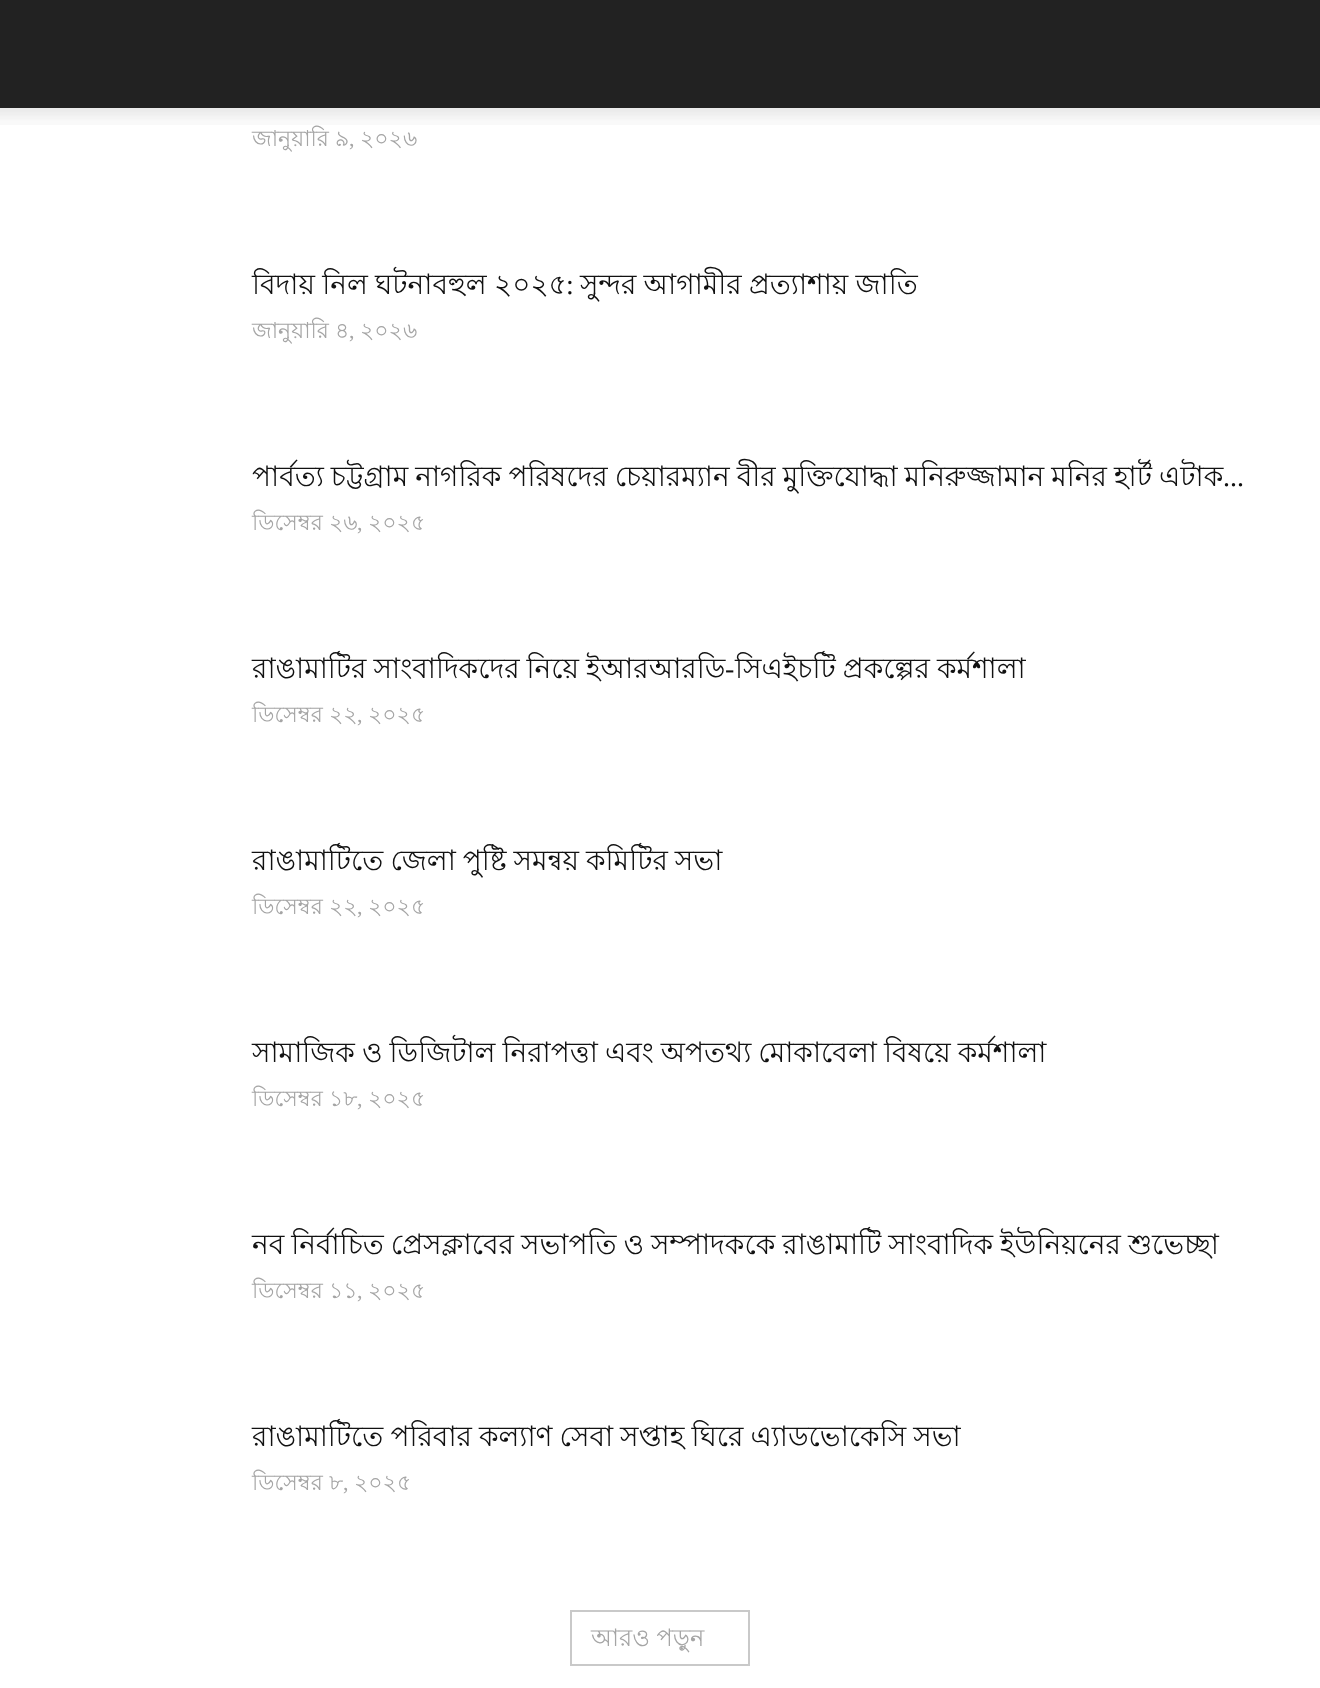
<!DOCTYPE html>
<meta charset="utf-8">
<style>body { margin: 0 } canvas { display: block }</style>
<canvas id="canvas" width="1320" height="1688"></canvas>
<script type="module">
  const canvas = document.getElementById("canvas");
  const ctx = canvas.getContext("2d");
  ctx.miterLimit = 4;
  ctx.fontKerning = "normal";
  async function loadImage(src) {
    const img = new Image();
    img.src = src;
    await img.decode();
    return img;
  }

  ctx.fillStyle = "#ffffff";
  ctx.fillRect(0, 0, 1320, 1688);
  ctx.fillStyle = "#222222";
  ctx.fillRect(0, 0, 1320, 108);
  ctx.drawImage(await loadImage("img1.png"), 0, 108, 1320, 17);
  ctx.font = "22px Lohit Bengali";
  ctx.fillStyle = "#a5a5a5";
  ctx.fillText("জানুয়ারি ৯", 252, 146);
  ctx.font = "22px Liberation Serif";
  ctx.fillText(",", 349, 146);
  ctx.font = "22px Lohit Bengali";
  ctx.fillText("২০২৬", 360, 146);
  ctx.wordSpacing = "-0.5px";
  ctx.font = "28px Lohit Bengali";
  ctx.fillStyle = "#111111";
  ctx.fillText("বিদায় নিল ঘটনাবহুল ২০২৫", 252, 294);
  ctx.wordSpacing = "0px";
  ctx.font = "28px Liberation Serif";
  ctx.fillText(":", 566, 294);
  ctx.wordSpacing = "-0.5px";
  ctx.font = "28px Lohit Bengali";
  ctx.fillText("সুন্দর আগামীর প্রত্যাশায় জাতি", 580, 294);
  ctx.wordSpacing = "0px";
  ctx.font = "22px Lohit Bengali";
  ctx.fillStyle = "#a5a5a5";
  ctx.fillText("জানুয়ারি ৪", 252, 338);
  ctx.font = "22px Liberation Serif";
  ctx.fillText(",", 349, 338);
  ctx.font = "22px Lohit Bengali";
  ctx.fillText("২০২৬", 360, 338);
  ctx.wordSpacing = "-0.75px";
  ctx.font = "28px Lohit Bengali";
  ctx.fillStyle = "#111111";
  ctx.fillText("পার্বত্য চট্টগ্রাম নাগরিক পরিষদের চেয়ারম্যান বীর মুক্তিযোদ্ধা মনিরুজ্জামান মনির হার্ট এটাক", 252, 486);
  ctx.wordSpacing = "0px";
  ctx.font = "28px Liberation Serif";
  ctx.fillText("...", 1223, 486);
  ctx.font = "22px Lohit Bengali";
  ctx.fillStyle = "#a5a5a5";
  ctx.fillText("ডিসেম্বর ২৬", 252, 530);
  ctx.font = "22px Liberation Serif";
  ctx.fillText(",", 357, 530);
  ctx.font = "22px Lohit Bengali";
  ctx.fillText("২০২৫", 368, 530);
  ctx.wordSpacing = "-0.75px";
  ctx.font = "28px Lohit Bengali";
  ctx.fillStyle = "#111111";
  ctx.fillText("রাঙামাটির সাংবাদিকদের নিয়ে ইআরআরডি", 252, 678);
  ctx.wordSpacing = "0px";
  ctx.font = "28px Liberation Serif";
  ctx.fillText("-", 725, 678);
  ctx.wordSpacing = "-0.75px";
  ctx.font = "28px Lohit Bengali";
  ctx.fillText("সিএইচটি প্রকল্পের কর্মশালা", 735, 678);
  ctx.wordSpacing = "0px";
  ctx.font = "22px Lohit Bengali";
  ctx.fillStyle = "#a5a5a5";
  ctx.fillText("ডিসেম্বর ২২", 252, 722);
  ctx.font = "22px Liberation Serif";
  ctx.fillText(",", 357, 722);
  ctx.font = "22px Lohit Bengali";
  ctx.fillText("২০২৫", 368, 722);
  ctx.wordSpacing = "-0.75px";
  ctx.font = "28px Lohit Bengali";
  ctx.fillStyle = "#111111";
  ctx.fillText("রাঙামাটিতে জেলা পুষ্টি সমন্বয় কমিটির সভা", 252, 870);
  ctx.wordSpacing = "0px";
  ctx.font = "22px Lohit Bengali";
  ctx.fillStyle = "#a5a5a5";
  ctx.fillText("ডিসেম্বর ২২", 252, 914);
  ctx.font = "22px Liberation Serif";
  ctx.fillText(",", 357, 914);
  ctx.font = "22px Lohit Bengali";
  ctx.fillText("২০২৫", 368, 914);
  ctx.wordSpacing = "-0.75px";
  ctx.font = "28px Lohit Bengali";
  ctx.fillStyle = "#111111";
  ctx.fillText("সামাজিক ও ডিজিটাল নিরাপত্তা এবং অপতথ্য মোকাবেলা বিষয়ে কর্মশালা", 252, 1062);
  ctx.wordSpacing = "0px";
  ctx.font = "22px Lohit Bengali";
  ctx.fillStyle = "#a5a5a5";
  ctx.fillText("ডিসেম্বর ১৮", 252, 1106);
  ctx.font = "22px Liberation Serif";
  ctx.fillText(",", 357, 1106);
  ctx.font = "22px Lohit Bengali";
  ctx.fillText("২০২৫", 368, 1106);
  ctx.wordSpacing = "-0.75px";
  ctx.font = "28px Lohit Bengali";
  ctx.fillStyle = "#111111";
  ctx.fillText("নব নির্বাচিত প্রেসক্লাবের সভাপতি ও সম্পাদককে রাঙামাটি সাংবাদিক ইউনিয়নের শুভেচ্ছা", 252, 1254);
  ctx.wordSpacing = "0px";
  ctx.font = "22px Lohit Bengali";
  ctx.fillStyle = "#a5a5a5";
  ctx.fillText("ডিসেম্বর ১১", 252, 1298);
  ctx.font = "22px Liberation Serif";
  ctx.fillText(",", 357, 1298);
  ctx.font = "22px Lohit Bengali";
  ctx.fillText("২০২৫", 368, 1298);
  ctx.wordSpacing = "-0.75px";
  ctx.font = "28px Lohit Bengali";
  ctx.fillStyle = "#111111";
  ctx.fillText("রাঙামাটিতে পরিবার কল্যাণ সেবা সপ্তাহ ঘিরে এ্যাডভোকেসি সভা", 252, 1446);
  ctx.wordSpacing = "0px";
  ctx.font = "22px Lohit Bengali";
  ctx.fillStyle = "#a5a5a5";
  ctx.fillText("ডিসেম্বর ৮", 252, 1490);
  ctx.font = "22px Liberation Serif";
  ctx.fillText(",", 343, 1490);
  ctx.font = "22px Lohit Bengali";
  ctx.fillText("২০২৫", 354, 1490);
  ctx.strokeStyle = "#c9c9c9";
  ctx.lineWidth = 2;
  ctx.strokeRect(571, 1611, 178, 54);
  ctx.font = "24px Lohit Bengali";
  ctx.fillText("আরও পড়ুন", 591, 1646);
</script>
